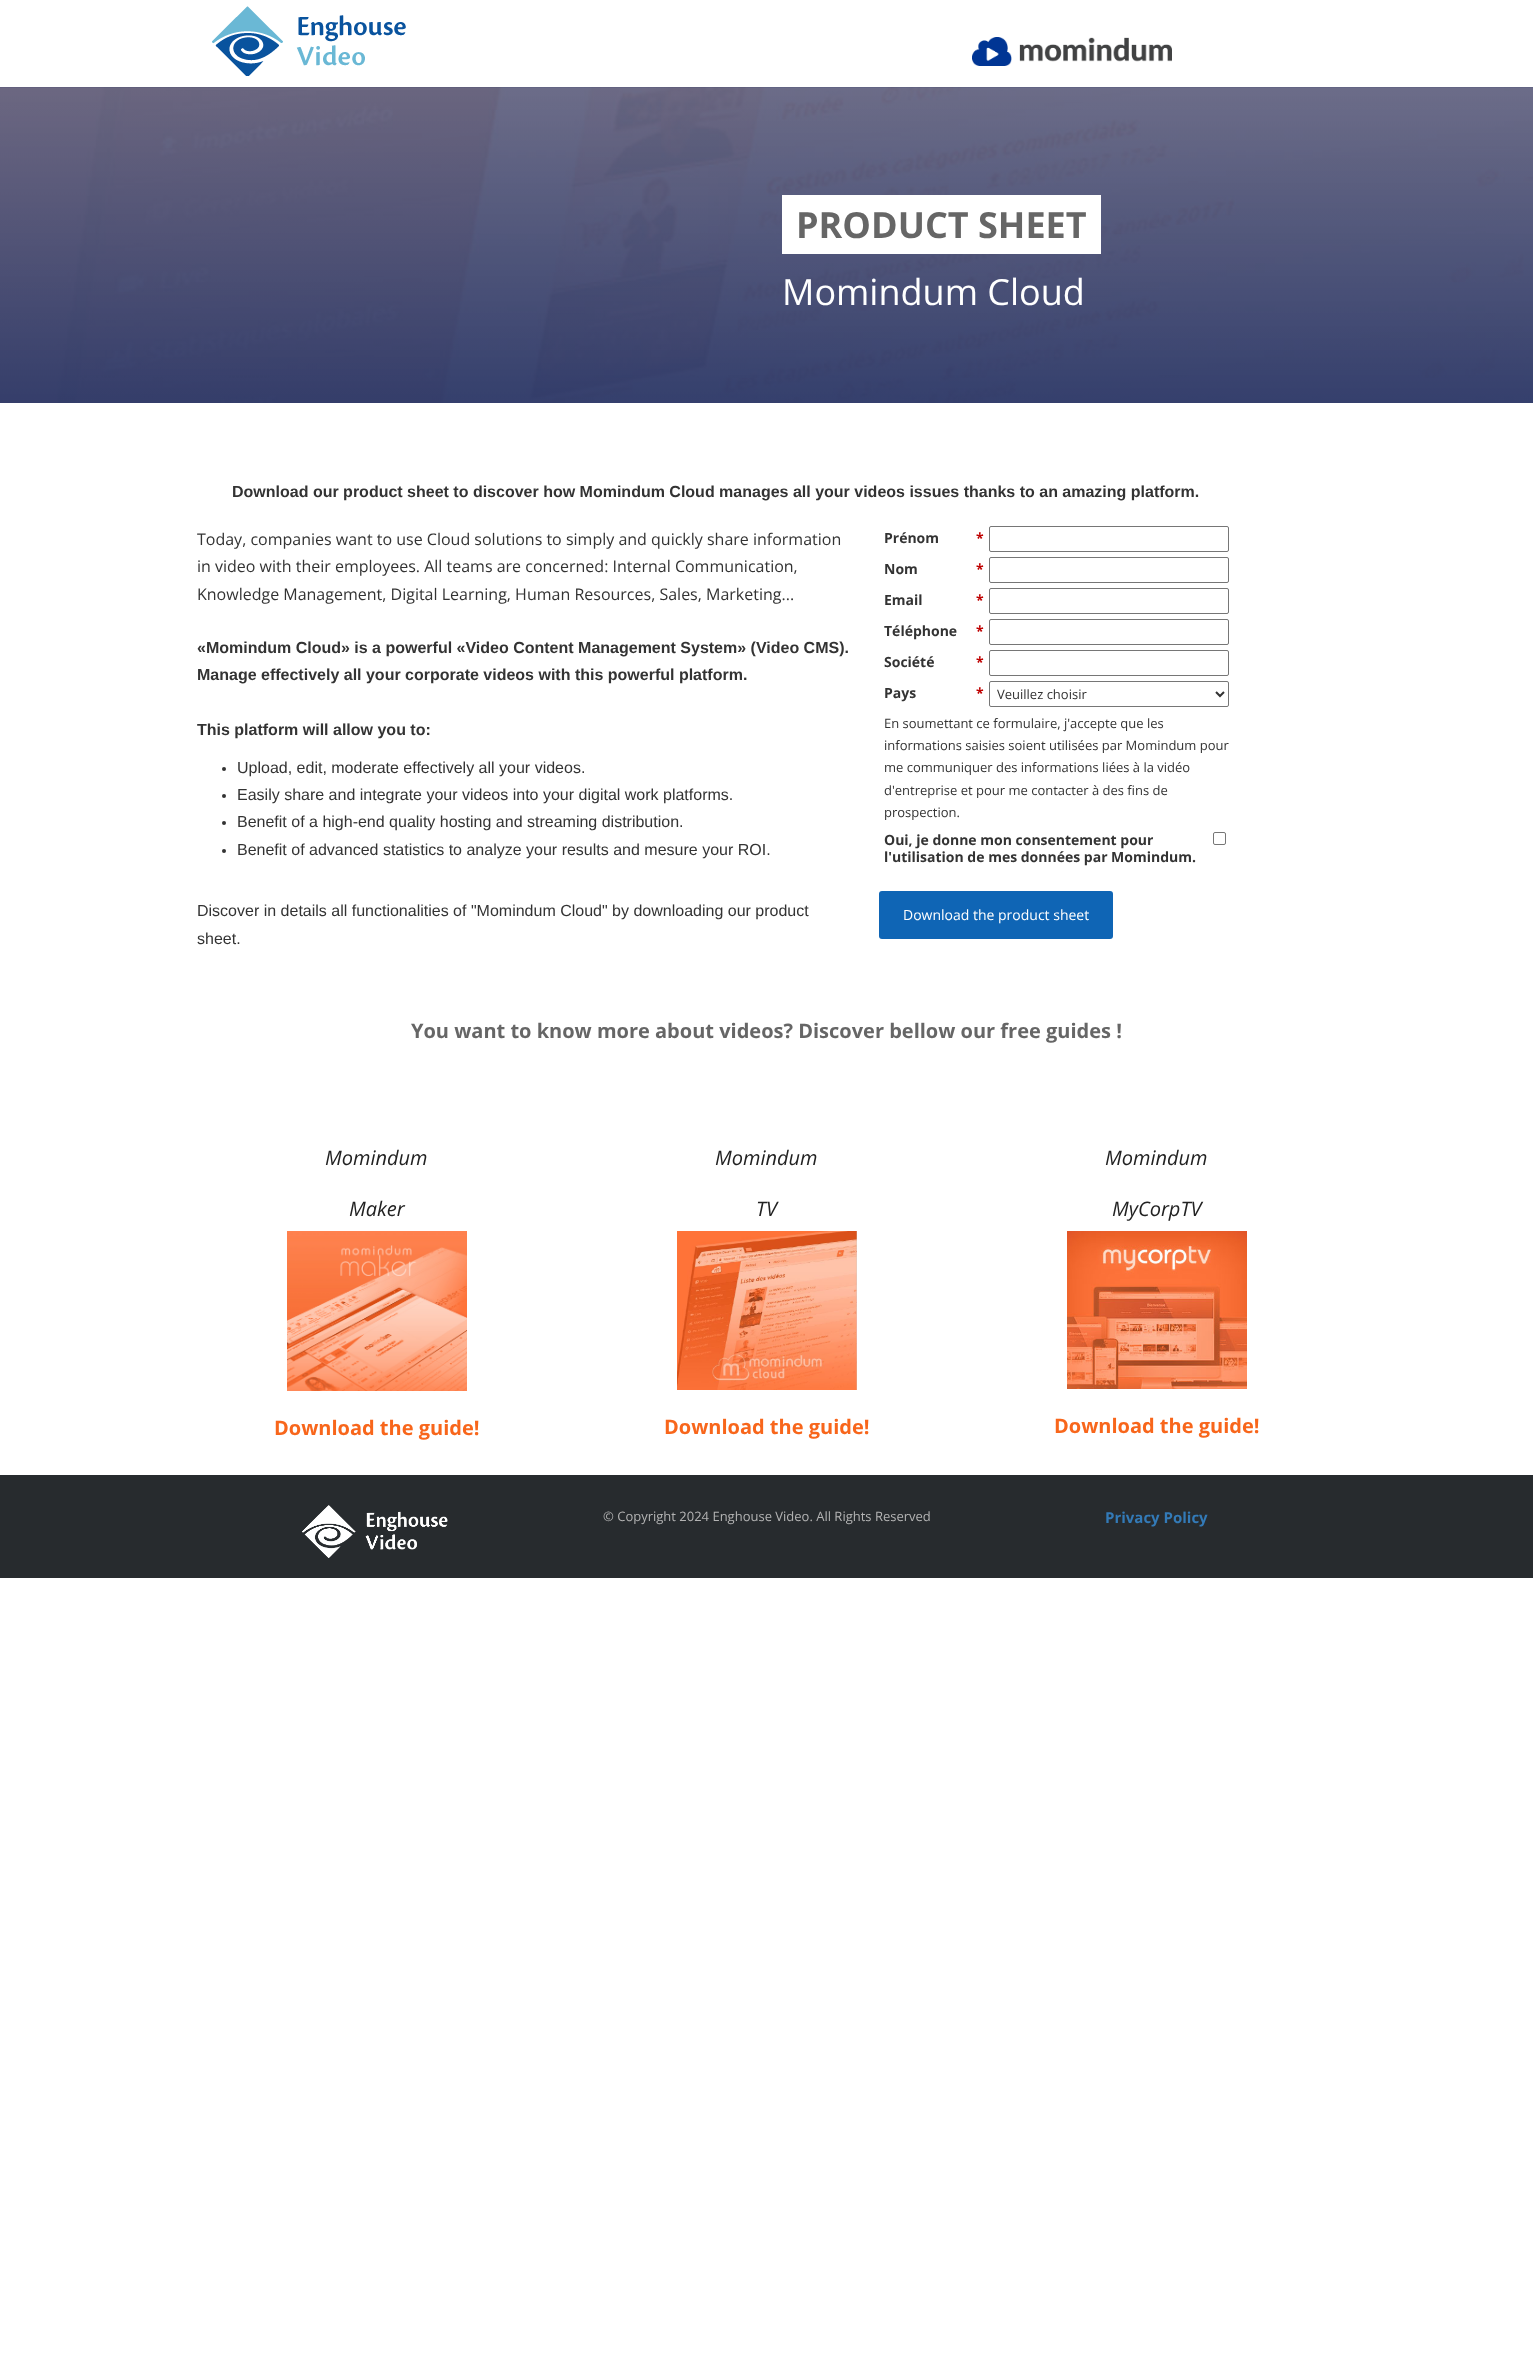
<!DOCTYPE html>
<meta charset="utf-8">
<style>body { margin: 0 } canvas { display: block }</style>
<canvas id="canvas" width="1533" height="2377"></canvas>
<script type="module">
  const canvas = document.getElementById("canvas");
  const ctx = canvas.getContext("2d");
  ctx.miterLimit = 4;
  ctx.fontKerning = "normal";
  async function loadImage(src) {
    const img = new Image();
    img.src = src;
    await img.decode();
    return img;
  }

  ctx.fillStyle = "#ffffff";
  ctx.fillRect(0, 0, 1533, 2377);
  ctx.drawImage(await loadImage("img1.png"), 212, 6, 194, 70);
  ctx.drawImage(await loadImage("img2.png"), 972, 37, 200, 29);
  ctx.drawImage(await loadImage("img3.png"), 0, 87, 1533, 316);
  ctx.fillRect(782, 195, 319, 59);
  ctx.font = "bold 36px Open Sans";
  ctx.fillStyle = "#666666";
  ctx.fillText("PRODUCT SHEET", 796, 238);
  ctx.font = "36px Open Sans";
  ctx.fillStyle = "#ffffff";
  ctx.fillText("Momindum Cloud", 782, 305);
  ctx.font = "bold 16px Liberation Sans";
  ctx.fillStyle = "#333333";
  ctx.fillText("Download our product sheet to discover how Momindum Cloud manages all your videos issues thanks to an amazing platform.", 232, 497);
  ctx.font = "16px Open Sans";
  ctx.fillText("Today, companies want to use Cloud solutions to simply and quickly share information", 197, 545);
  ctx.fillText("in video with their employees. All teams are concerned: Internal Communication,", 197, 572);
  ctx.fillText("Knowledge Management, Digital Learning, Human Resources, Sales, Marketing...", 197, 600);
  ctx.font = "bold 16px Liberation Sans";
  ctx.fillText("«Momindum Cloud» is a powerful «Video Content Management System» (Video CMS).", 197, 653);
  ctx.fillText("Manage effectively all your corporate videos with this powerful platform.", 197, 680);
  ctx.fillText("This platform will allow you to:", 197, 735);
  ctx.beginPath();
  ctx.arc(224, 769, 2, 0, Math.PI * 2);
  ctx.fill();
  ctx.font = "16px Liberation Sans";
  ctx.fillText("Upload, edit, moderate effectively all your videos.", 237, 773);
  ctx.beginPath();
  ctx.arc(224, 796, 2, 0, Math.PI * 2);
  ctx.fill();
  ctx.fillText("Easily share and integrate your videos into your digital work platforms.", 237, 800);
  ctx.beginPath();
  ctx.arc(224, 823, 2, 0, Math.PI * 2);
  ctx.fill();
  ctx.fillText("Benefit of a high-end quality hosting and streaming distribution.", 237, 827);
  ctx.beginPath();
  ctx.arc(224, 851, 2, 0, Math.PI * 2);
  ctx.fill();
  ctx.fillText("Benefit of advanced statistics to analyze your results and mesure your ROI.", 237, 855);
  ctx.fillText("Discover in details all functionalities of \"Momindum Cloud\" by downloading our product", 197, 916);
  ctx.fillText("sheet.", 197, 944);
  ctx.font = "bold 14px Open Sans";
  ctx.fillText("Prénom", 884, 543);
  ctx.fillStyle = "#bf0000";
  ctx.fillText("*", 976, 543);
  ctx.beginPath();
  ctx.roundRect(989.5, 526.5, 239, 25, 1.5);
  ctx.strokeStyle = "#767676";
  ctx.stroke();
  ctx.fillStyle = "#333333";
  ctx.fillText("Nom", 884, 574);
  ctx.fillStyle = "#bf0000";
  ctx.fillText("*", 976, 574);
  ctx.beginPath();
  ctx.roundRect(989.5, 557.5, 239, 25, 1.5);
  ctx.stroke();
  ctx.fillStyle = "#333333";
  ctx.fillText("Email", 884, 605);
  ctx.fillStyle = "#bf0000";
  ctx.fillText("*", 976, 605);
  ctx.beginPath();
  ctx.roundRect(989.5, 588.5, 239, 25, 1.5);
  ctx.stroke();
  ctx.fillStyle = "#333333";
  ctx.fillText("Téléphone", 884, 636);
  ctx.fillStyle = "#bf0000";
  ctx.fillText("*", 976, 636);
  ctx.beginPath();
  ctx.roundRect(989.5, 619.5, 239, 25, 1.5);
  ctx.stroke();
  ctx.fillStyle = "#333333";
  ctx.fillText("Société", 884, 667);
  ctx.fillStyle = "#bf0000";
  ctx.fillText("*", 976, 667);
  ctx.beginPath();
  ctx.roundRect(989.5, 650.5, 239, 25, 1.5);
  ctx.stroke();
  ctx.fillStyle = "#333333";
  ctx.fillText("Pays", 884, 698);
  ctx.fillStyle = "#bf0000";
  ctx.fillText("*", 976, 698);
  ctx.beginPath();
  ctx.roundRect(989.5, 681.5, 239, 25, 1.5);
  ctx.stroke();
  ctx.beginPath();
  ctx.moveTo(1216, 692);
  ctx.lineTo(1220, 696);
  ctx.lineTo(1224, 692);
  ctx.strokeStyle = "#333333";
  ctx.lineWidth = 2;
  ctx.stroke();
  ctx.font = "13px Open Sans";
  ctx.fillStyle = "#333333";
  ctx.fillText("Veuillez choisir", 997, 699);
  ctx.fillText("En soumettant ce formulaire, j'accepte que les", 884, 728);
  ctx.fillText("informations saisies soient utilisées par Momindum pour", 884, 750);
  ctx.fillText("me communiquer des informations liées à la vidéo", 884, 772);
  ctx.fillText("d'entreprise et pour me contacter à des fins de", 884, 795);
  ctx.fillText("prospection.", 884, 817);
  ctx.font = "bold 14px Open Sans";
  ctx.fillText("Oui, je donne mon consentement pour", 884, 845);
  ctx.fillText("l'utilisation de mes données par Momindum.", 884, 862);
  ctx.beginPath();
  ctx.roundRect(1213.5, 832.5, 12, 12, 1.5);
  ctx.strokeStyle = "#767676";
  ctx.lineWidth = 1;
  ctx.stroke();
  ctx.fillStyle = "#0f65b5";
  ctx.beginPath();
  ctx.roundRect(879, 891, 234, 48, 3);
  ctx.fill();
  ctx.font = "14px Open Sans";
  ctx.fillStyle = "#ffffff";
  ctx.fillText("Download the product sheet", 903, 920);
  ctx.font = "bold 20px Open Sans";
  ctx.fillStyle = "#666666";
  ctx.fillText("You want to know more about videos? Discover bellow our free guides !", 411, 1038);
  ctx.font = "italic 20px Open Sans";
  ctx.fillStyle = "#222222";
  ctx.fillText("Momindum", 325, 1165);
  ctx.fillText("Maker", 349, 1216);
  ctx.drawImage(await loadImage("img4.png"), 287, 1231, 180, 160);
  ctx.font = "bold 20px Open Sans";
  ctx.fillStyle = "#f8661b";
  ctx.fillText("Download the guide!", 274, 1435);
  ctx.font = "italic 20px Open Sans";
  ctx.fillStyle = "#222222";
  ctx.fillText("Momindum", 715, 1165);
  ctx.fillText("TV", 756, 1216);
  ctx.drawImage(await loadImage("img5.png"), 677, 1231, 180, 159);
  ctx.font = "bold 20px Open Sans";
  ctx.fillStyle = "#f8661b";
  ctx.fillText("Download the guide!", 664, 1434);
  ctx.font = "italic 20px Open Sans";
  ctx.fillStyle = "#222222";
  ctx.fillText("Momindum", 1105, 1165);
  ctx.fillText("MyCorpTV", 1112, 1216);
  ctx.drawImage(await loadImage("img6.png"), 1067, 1231, 180, 158);
  ctx.font = "bold 20px Open Sans";
  ctx.fillStyle = "#f8661b";
  ctx.fillText("Download the guide!", 1054, 1433);
  ctx.fillStyle = "#272b2e";
  ctx.fillRect(0, 1475, 1533, 103);
  ctx.drawImage(await loadImage("img7.png"), 302, 1505, 146, 53);
  ctx.font = "13px Open Sans";
  ctx.fillStyle = "#b3b3b3";
  ctx.fillText("© Copyright 2024 Enghouse Video. All Rights Reserved", 603, 1521);
  ctx.font = "bold 15px Open Sans";
  ctx.fillStyle = "#337ab7";
  ctx.fillText("Privacy Policy", 1105, 1523);
</script>
